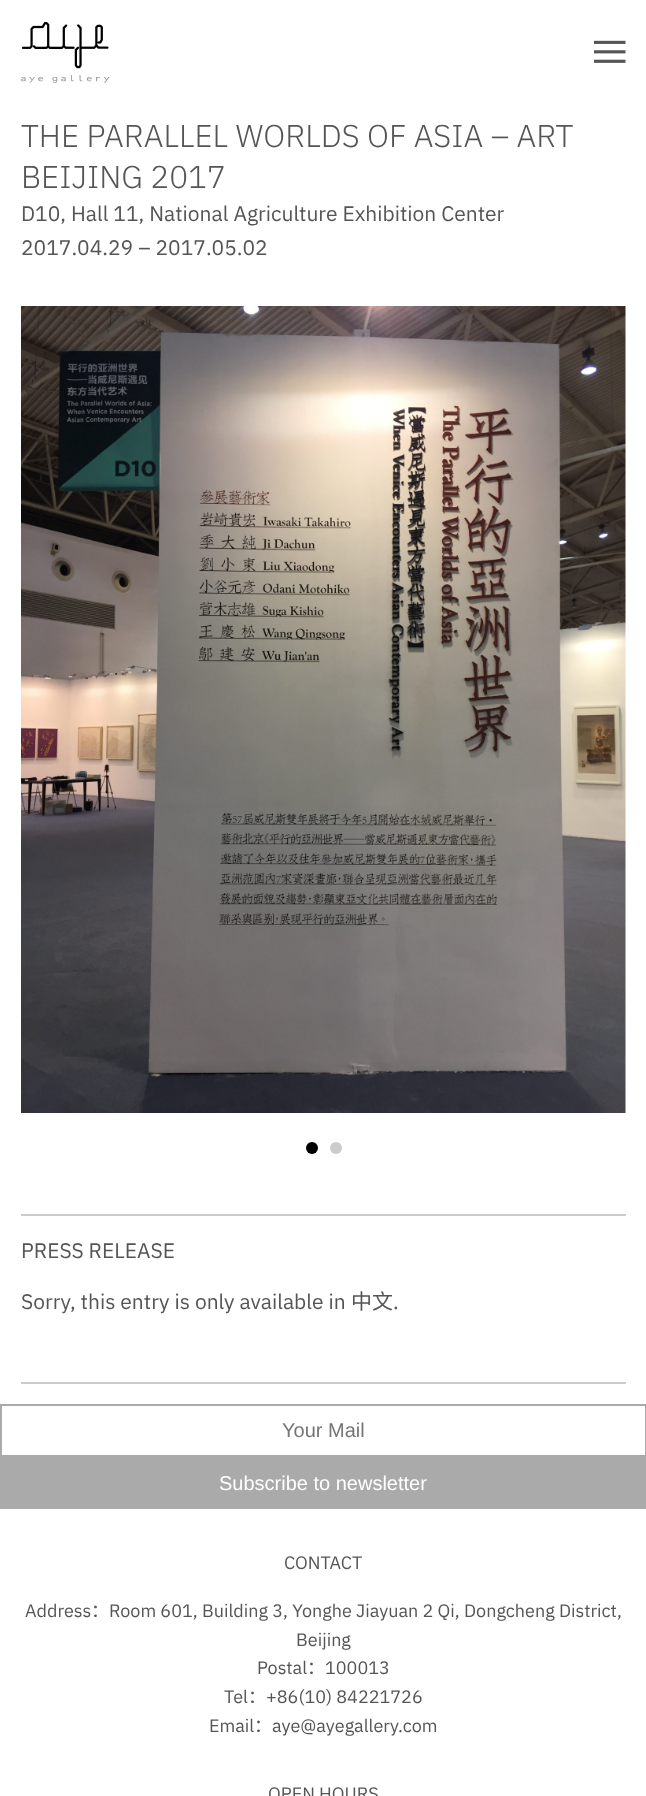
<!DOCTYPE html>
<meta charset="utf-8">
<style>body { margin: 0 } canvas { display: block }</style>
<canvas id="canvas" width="646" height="1796"></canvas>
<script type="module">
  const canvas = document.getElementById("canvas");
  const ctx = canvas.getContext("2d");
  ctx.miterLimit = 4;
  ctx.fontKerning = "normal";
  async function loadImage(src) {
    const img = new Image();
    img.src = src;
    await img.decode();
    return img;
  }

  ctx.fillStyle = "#ffffff";
  ctx.fillRect(0, 0, 646, 1796);
  ctx.drawImage(await loadImage("img1.png"), 21, 21, 89, 62);
  ctx.drawImage(await loadImage("img2.png"), 594, 40, 32, 23);
  ctx.font = "300 31.5px IBM Plex Sans";
  ctx.fillStyle = "#555555";
  ctx.fillText("THE PARALLEL WORLDS OF ASIA – ART", 21, 147);
  ctx.fillText("BEIJING 2017", 21, 188);
  ctx.font = "21px IBM Plex Sans";
  ctx.fillText("D10, Hall 11, National Agriculture Exhibition Center", 21, 221);
  ctx.fillText("2017.04.29 – 2017.05.02", 21, 255);
  ctx.drawImage(await loadImage("img3.png"), 21, 306, 605, 807);
  ctx.fillStyle = "#000000";
  ctx.beginPath();
  ctx.arc(312, 1148, 6, 0, Math.PI * 2);
  ctx.fill();
  ctx.fillStyle = "#cccccc";
  ctx.beginPath();
  ctx.arc(336, 1148, 6, 0, Math.PI * 2);
  ctx.fill();
  ctx.fillRect(21, 1214, 605, 2);
  ctx.fillStyle = "#555555";
  ctx.fillText("PRESS RELEASE", 21, 1258);
  ctx.fillText("Sorry, this entry is only available in", 21, 1309);
  ctx.font = "21px Noto Sans SC";
  ctx.fillText("中文", 351, 1309);
  ctx.font = "21px IBM Plex Sans";
  ctx.fillText(".", 393, 1309);
  ctx.fillStyle = "#cccccc";
  ctx.fillRect(21, 1382, 605, 2);
  ctx.strokeStyle = "#aaaaaa";
  ctx.lineWidth = 2;
  ctx.strokeRect(1, 1405, 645, 51);
  ctx.font = "20px Liberation Sans";
  ctx.fillStyle = "#757575";
  ctx.fillText("Your Mail", 282, 1437);
  ctx.fillStyle = "#aaaaaa";
  ctx.fillRect(0, 1457, 646, 52);
  ctx.fillStyle = "#ffffff";
  ctx.fillText("Subscribe to newsletter", 219, 1490);
  ctx.font = "18px IBM Plex Sans";
  ctx.fillStyle = "#555555";
  ctx.fillText("CONTACT", 284, 1569);
  ctx.fillText("Address", 25, 1617);
  ctx.font = "18px Noto Sans SC";
  ctx.fillText("：", 91, 1617);
  ctx.font = "18px IBM Plex Sans";
  ctx.fillText("Room 601, Building 3, Yonghe Jiayuan 2 Qi, Dongcheng District,", 109, 1617);
  ctx.fillText("Beijing", 296, 1646);
  ctx.fillText("Postal", 257, 1674);
  ctx.font = "18px Noto Sans SC";
  ctx.fillText("：", 307, 1674);
  ctx.font = "18px IBM Plex Sans";
  ctx.fillText("100013", 325, 1674);
  ctx.fillText("Tel", 224, 1703);
  ctx.font = "18px Noto Sans SC";
  ctx.fillText("：", 248, 1703);
  ctx.font = "18px IBM Plex Sans";
  ctx.fillText("+86(10) 84221726", 266, 1703);
  ctx.fillText("Email", 209, 1732);
  ctx.font = "18px Noto Sans SC";
  ctx.fillText("：", 254, 1732);
  ctx.font = "18px IBM Plex Sans";
  ctx.fillText("aye@ayegallery.com", 272, 1732);
  ctx.fillText("OPEN HOURS", 268, 1800);
</script>
